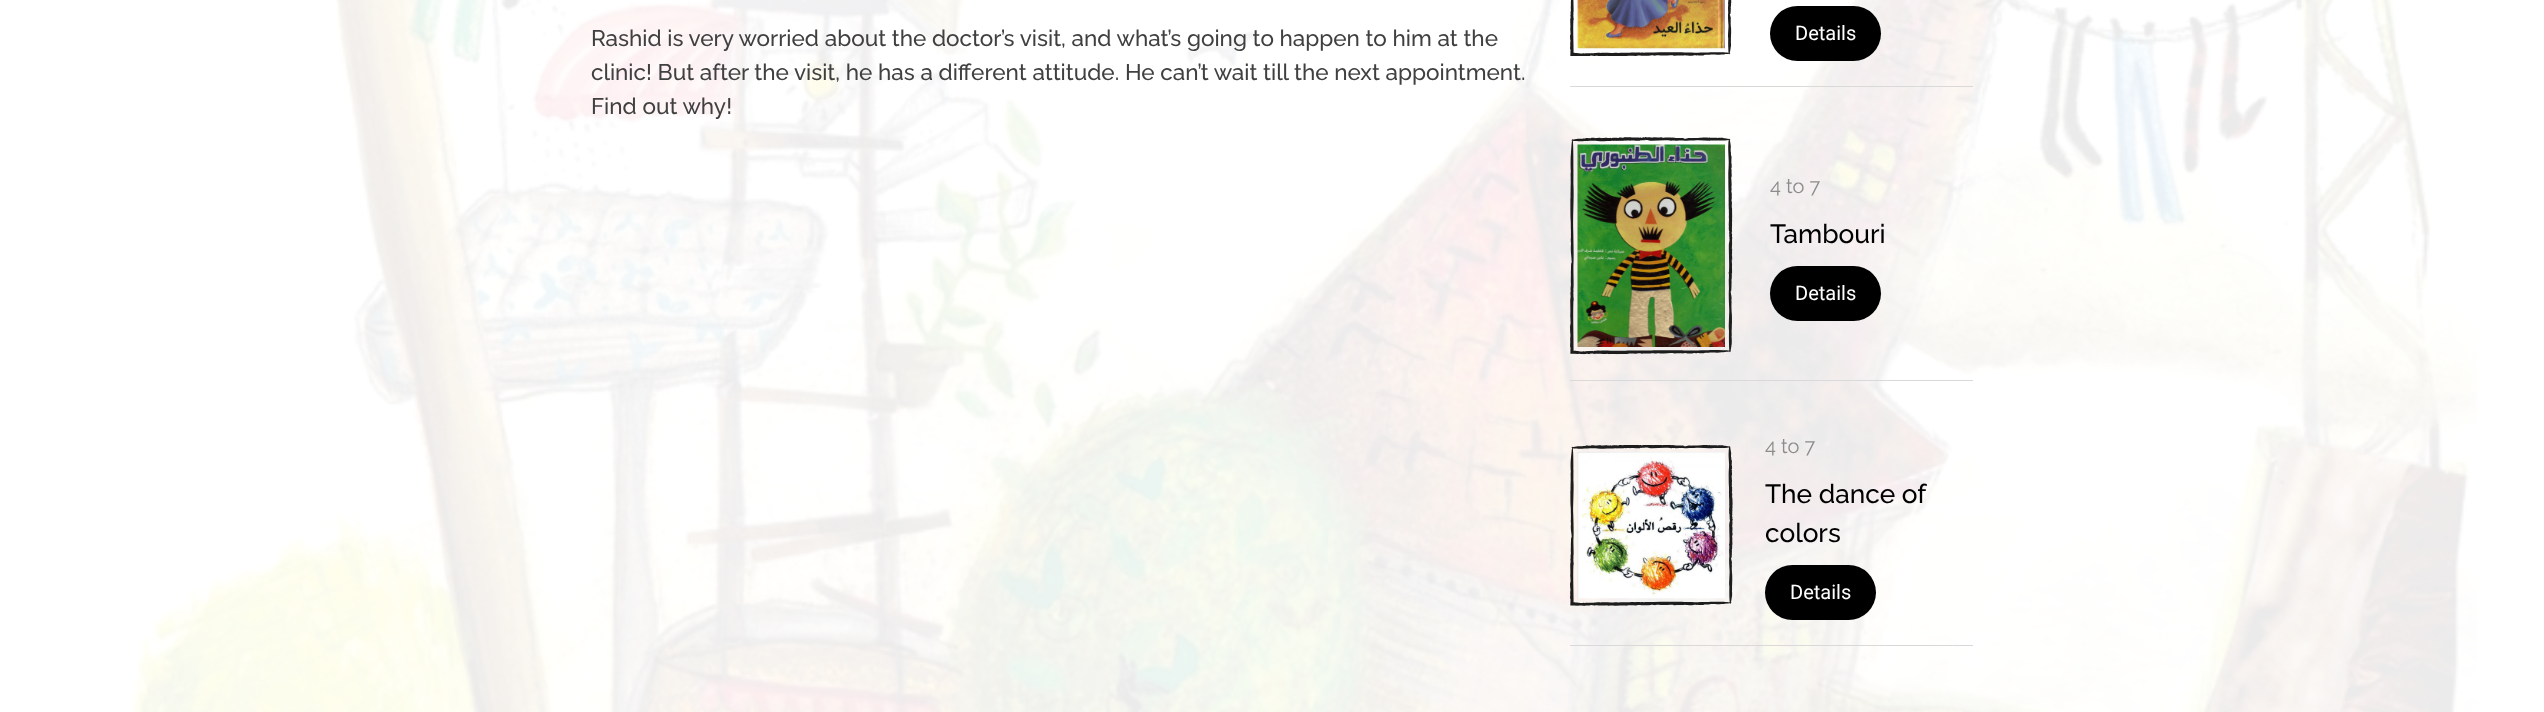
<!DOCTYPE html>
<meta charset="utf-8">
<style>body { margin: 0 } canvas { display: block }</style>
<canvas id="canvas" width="2544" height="712"></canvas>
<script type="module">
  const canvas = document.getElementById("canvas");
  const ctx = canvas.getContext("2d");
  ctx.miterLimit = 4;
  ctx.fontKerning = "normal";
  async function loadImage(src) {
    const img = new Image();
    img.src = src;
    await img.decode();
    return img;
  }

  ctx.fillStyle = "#ffffff";
  ctx.fillRect(0, 0, 2544, 712);
  ctx.drawImage(await loadImage("img1.png"), 132, 0, 2345, 712);
  ctx.font = "500 22.5px Raleway";
  ctx.fillStyle = "#404040";
  ctx.fillText("Rashid is very worried about the doctor’s visit, and what’s going to happen to him at the", 591, 46);
  ctx.fillText("clinic! But after the visit, he has a different attitude. He can’t wait till the next appointment.", 591, 80);
  ctx.fillText("Find out why!", 591, 114);
  ctx.fillStyle = "#d9d9d9";
  ctx.fillRect(1570, 86, 403, 1);
  ctx.drawImage(await loadImage("img2.png"), 1570, 0, 162, 56);
  ctx.drawImage(await loadImage("img3.png"), 1577, 0, 148, 49);
  ctx.fillStyle = "#000000";
  ctx.beginPath();
  ctx.roundRect(1770, 6, 111, 55, 27.5);
  ctx.fill();
  ctx.font = "20px Roboto";
  ctx.fillStyle = "#ffffff";
  ctx.fillText("Details", 1795, 40);
  ctx.fillStyle = "#d9d9d9";
  ctx.fillRect(1570, 380, 403, 1);
  ctx.drawImage(await loadImage("img4.png"), 1570, 137, 163, 218);
  ctx.drawImage(await loadImage("img5.png"), 1577, 144, 148, 203);
  ctx.font = "20px Raleway";
  ctx.fillStyle = "#8c8c8c";
  ctx.fillText("4 to 7", 1770, 193);
  ctx.font = "500 26.25px Raleway";
  ctx.fillStyle = "#000000";
  ctx.fillText("Tambouri", 1770, 243);
  ctx.beginPath();
  ctx.roundRect(1770, 266, 111, 55, 27.5);
  ctx.fill();
  ctx.font = "20px Roboto";
  ctx.fillStyle = "#ffffff";
  ctx.fillText("Details", 1795, 300);
  ctx.fillStyle = "#d9d9d9";
  ctx.fillRect(1570, 645, 403, 1);
  ctx.drawImage(await loadImage("img6.png"), 1570, 445, 163, 161);
  ctx.drawImage(await loadImage("img7.png"), 1577, 452, 148, 147);
  ctx.font = "20px Raleway";
  ctx.fillStyle = "#8c8c8c";
  ctx.fillText("4 to 7", 1765, 453);
  ctx.font = "500 26.25px Raleway";
  ctx.fillStyle = "#000000";
  ctx.fillText("The dance of", 1765, 503);
  ctx.fillText("colors", 1765, 542);
  ctx.beginPath();
  ctx.roundRect(1765, 565, 111, 55, 27.5);
  ctx.fill();
  ctx.font = "20px Roboto";
  ctx.fillStyle = "#ffffff";
  ctx.fillText("Details", 1790, 599);
</script>
